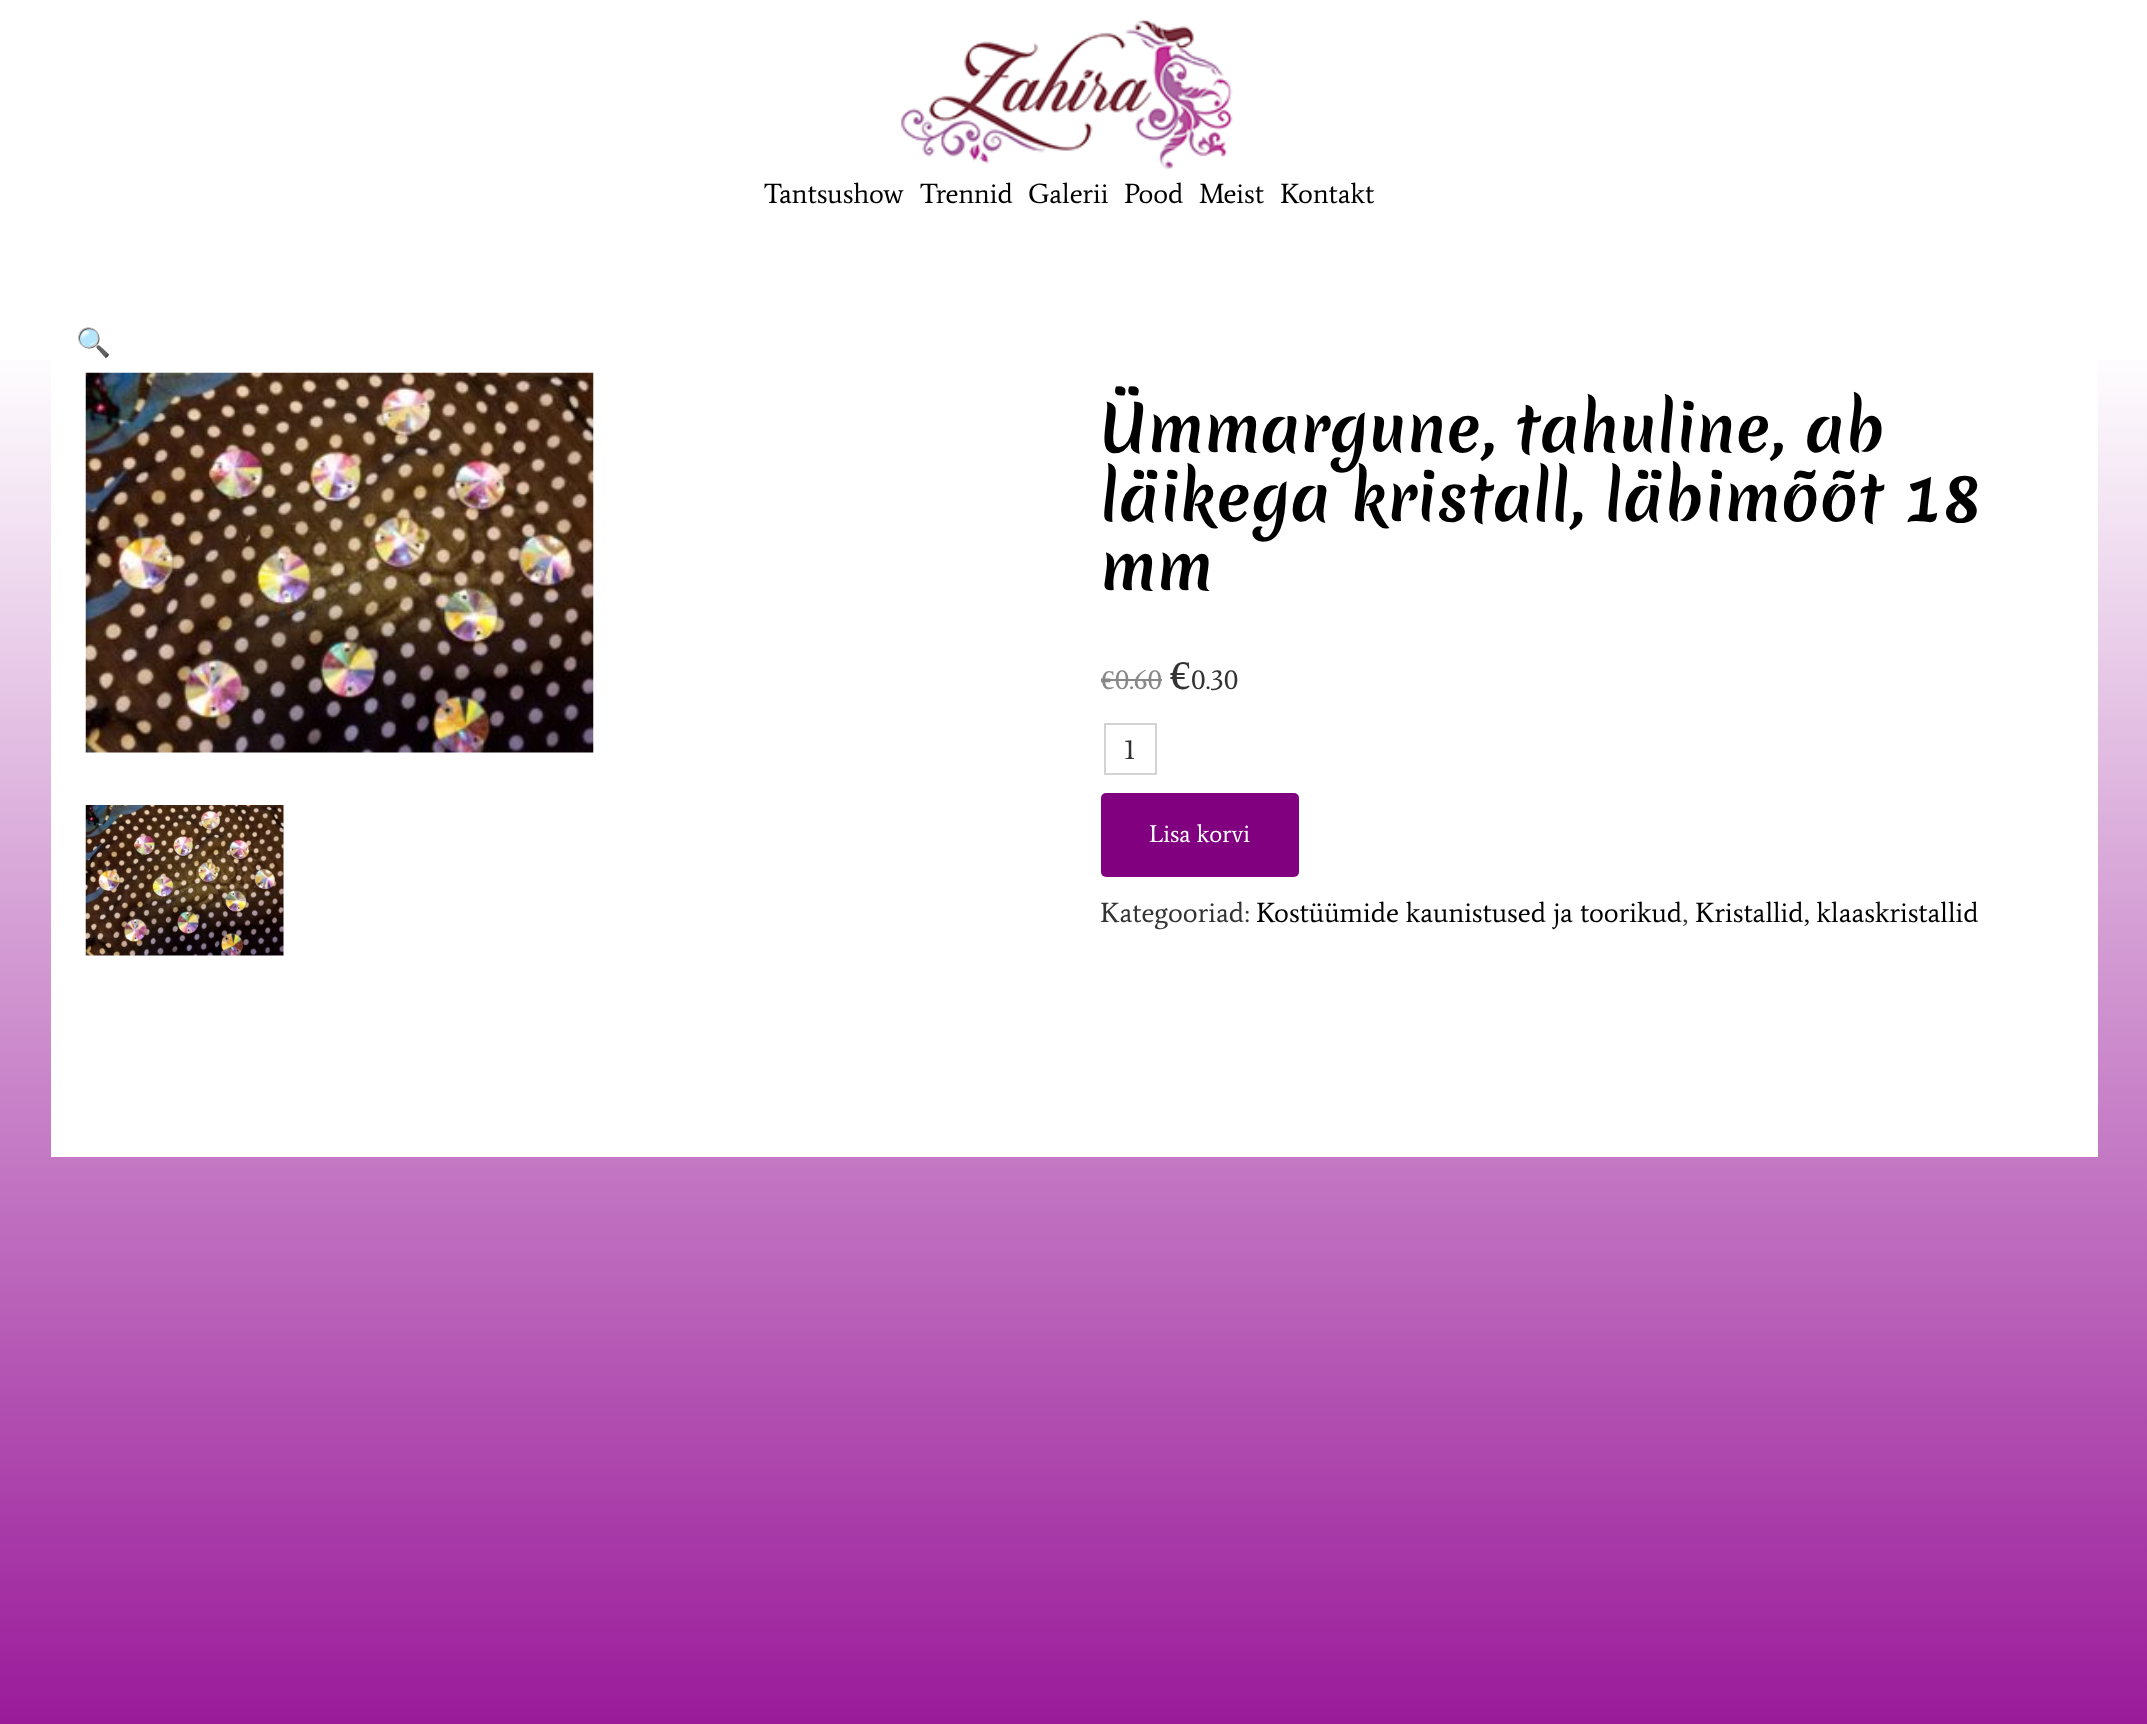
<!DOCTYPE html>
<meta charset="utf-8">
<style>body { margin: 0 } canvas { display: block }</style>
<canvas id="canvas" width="2147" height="1724"></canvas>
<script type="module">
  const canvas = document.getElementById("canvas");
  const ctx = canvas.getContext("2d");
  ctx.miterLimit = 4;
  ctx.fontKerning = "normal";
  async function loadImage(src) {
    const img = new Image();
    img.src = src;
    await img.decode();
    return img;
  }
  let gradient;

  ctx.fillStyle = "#ffffff";
  ctx.fillRect(0, 0, 2147, 1724);
  gradient = ctx.createLinearGradient(1074, 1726, 1074, 0);
  gradient.addColorStop(0, "#9a1a9a");
  gradient.addColorStop(0.8, "#ffffff");
  ctx.fillStyle = gradient;
  ctx.fillRect(0, 360, 2147, 1364);
  ctx.drawImage(await loadImage("img1.png"), 900, 19, 333, 151);
  ctx.font = "28px Average";
  ctx.fillStyle = "#000000";
  ctx.fillText("Tantsushow", 764, 203);
  ctx.fillText("Trennid", 920, 203);
  ctx.fillText("Galerii", 1028, 203);
  ctx.fillText("Pood", 1124, 203);
  ctx.fillText("Meist", 1199, 203);
  ctx.fillText("Kontakt", 1280, 203);
  ctx.fillStyle = "#ffffff";
  ctx.fillRect(51, 360, 2047, 797);
  ctx.font = "28px Noto Color Emoji";
  ctx.fillStyle = "#000000";
  ctx.fillText("🔍", 76, 352);
  ctx.drawImage(await loadImage("img2.png"), 85, 372, 509, 381);
  ctx.drawImage(await loadImage("img3.png"), 85, 805, 199, 151);
  ctx.font = "63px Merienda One";
  ctx.fillText("Ümmargune, tahuline, ab", 1100, 452);
  ctx.fillText("läikega kristall, läbimõõt 18", 1100, 521);
  ctx.fillText("mm", 1100, 590);
  ctx.font = "28px Average";
  ctx.fillStyle = "#888888";
  ctx.fillText("€0.60", 1100, 689);
  ctx.fillRect(1101, 679, 61, 2);
  ctx.font = "42px Average";
  ctx.fillStyle = "#333333";
  ctx.fillText("€", 1169, 689);
  ctx.font = "28px Average";
  ctx.fillText("0.30", 1191, 689);
  ctx.strokeStyle = "#d3d3d3";
  ctx.lineWidth = 2;
  ctx.strokeRect(1105, 724, 51, 50);
  ctx.fillText("1", 1124, 759);
  ctx.fillStyle = "#800080";
  ctx.beginPath();
  ctx.roundRect(1101, 793, 198, 84, 5);
  ctx.fill();
  ctx.font = "24.5px Average";
  ctx.fillStyle = "#ffffff";
  ctx.fillText("Lisa korvi", 1149, 842);
  ctx.font = "28px Average";
  ctx.fillStyle = "#333333";
  ctx.fillText("Kategooriad:", 1100, 922);
  ctx.fillStyle = "#000000";
  ctx.fillText("Kostüümide kaunistused ja toorikud", 1256, 922);
  ctx.fillStyle = "#333333";
  ctx.fillText(",", 1682, 922);
  ctx.fillStyle = "#000000";
  ctx.fillText("Kristallid, klaaskristallid", 1695, 922);
</script>
